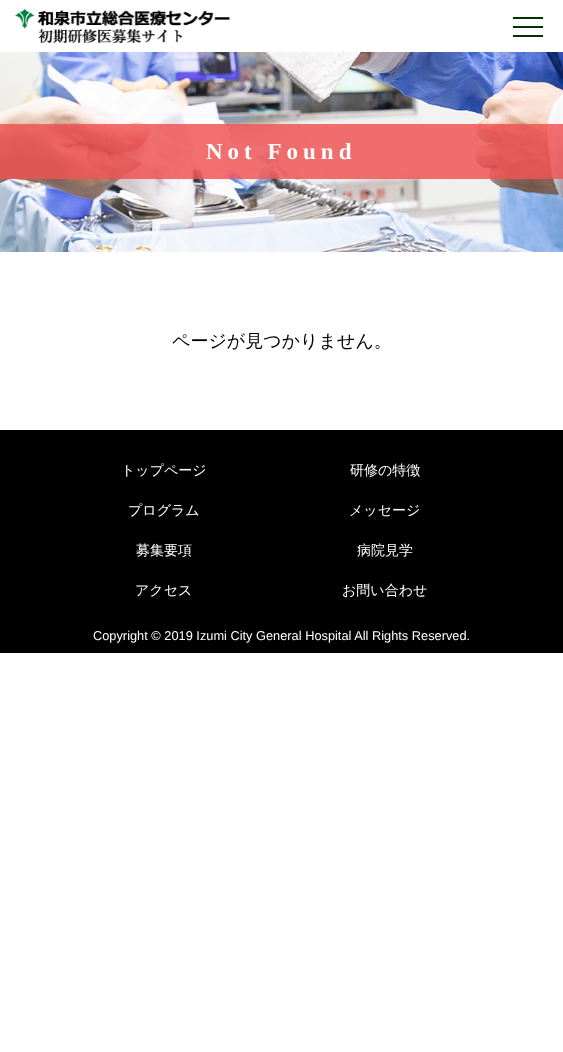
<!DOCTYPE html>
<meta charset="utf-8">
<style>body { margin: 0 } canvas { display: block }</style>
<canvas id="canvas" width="563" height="1052"></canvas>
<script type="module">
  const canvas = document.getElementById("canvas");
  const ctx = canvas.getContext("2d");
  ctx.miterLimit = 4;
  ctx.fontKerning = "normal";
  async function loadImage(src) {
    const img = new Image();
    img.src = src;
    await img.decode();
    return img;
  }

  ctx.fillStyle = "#ffffff";
  ctx.fillRect(0, 0, 563, 1052);
  ctx.drawImage(await loadImage("img1.png"), 15, 9, 215, 34);
  ctx.fillStyle = "#003300";
  ctx.fillRect(513, 17, 30, 2);
  ctx.fillRect(513, 26, 30, 2);
  ctx.fillRect(513, 35, 30, 2);
  ctx.drawImage(await loadImage("img2.png"), 0, 52, 563, 200);
  ctx.fillStyle = "rgba(239, 84, 84, 0.84)";
  ctx.fillRect(0, 124, 563, 55);
  ctx.letterSpacing = "5px";
  ctx.font = "bold 23px Liberation Serif";
  ctx.fillStyle = "#ffffff";
  ctx.fillText("Not Found", 206, 159);
  ctx.letterSpacing = "0px";
  ctx.font = "500 18px WenQuanYi Zen Hei";
  ctx.fillStyle = "#000000";
  ctx.fillText("ページが見つかりません。", 172, 347);
  ctx.fillRect(0, 430, 563, 223);
  ctx.font = "500 14px WenQuanYi Zen Hei";
  ctx.fillStyle = "#ffffff";
  ctx.fillText("トップページ", 121, 475);
  ctx.fillText("研修の特徴", 350, 475);
  ctx.fillText("プログラム", 128, 515);
  ctx.fillText("メッセージ", 349, 515);
  ctx.fillText("募集要項", 136, 555);
  ctx.fillText("病院見学", 357, 555);
  ctx.fillText("アクセス", 135, 595);
  ctx.fillText("お問い合わせ", 342, 595);
  ctx.font = "12.8px Liberation Sans";
  ctx.fillText("Copyright © 2019 Izumi City General Hospital All Rights Reserved.", 93, 640);
</script>
